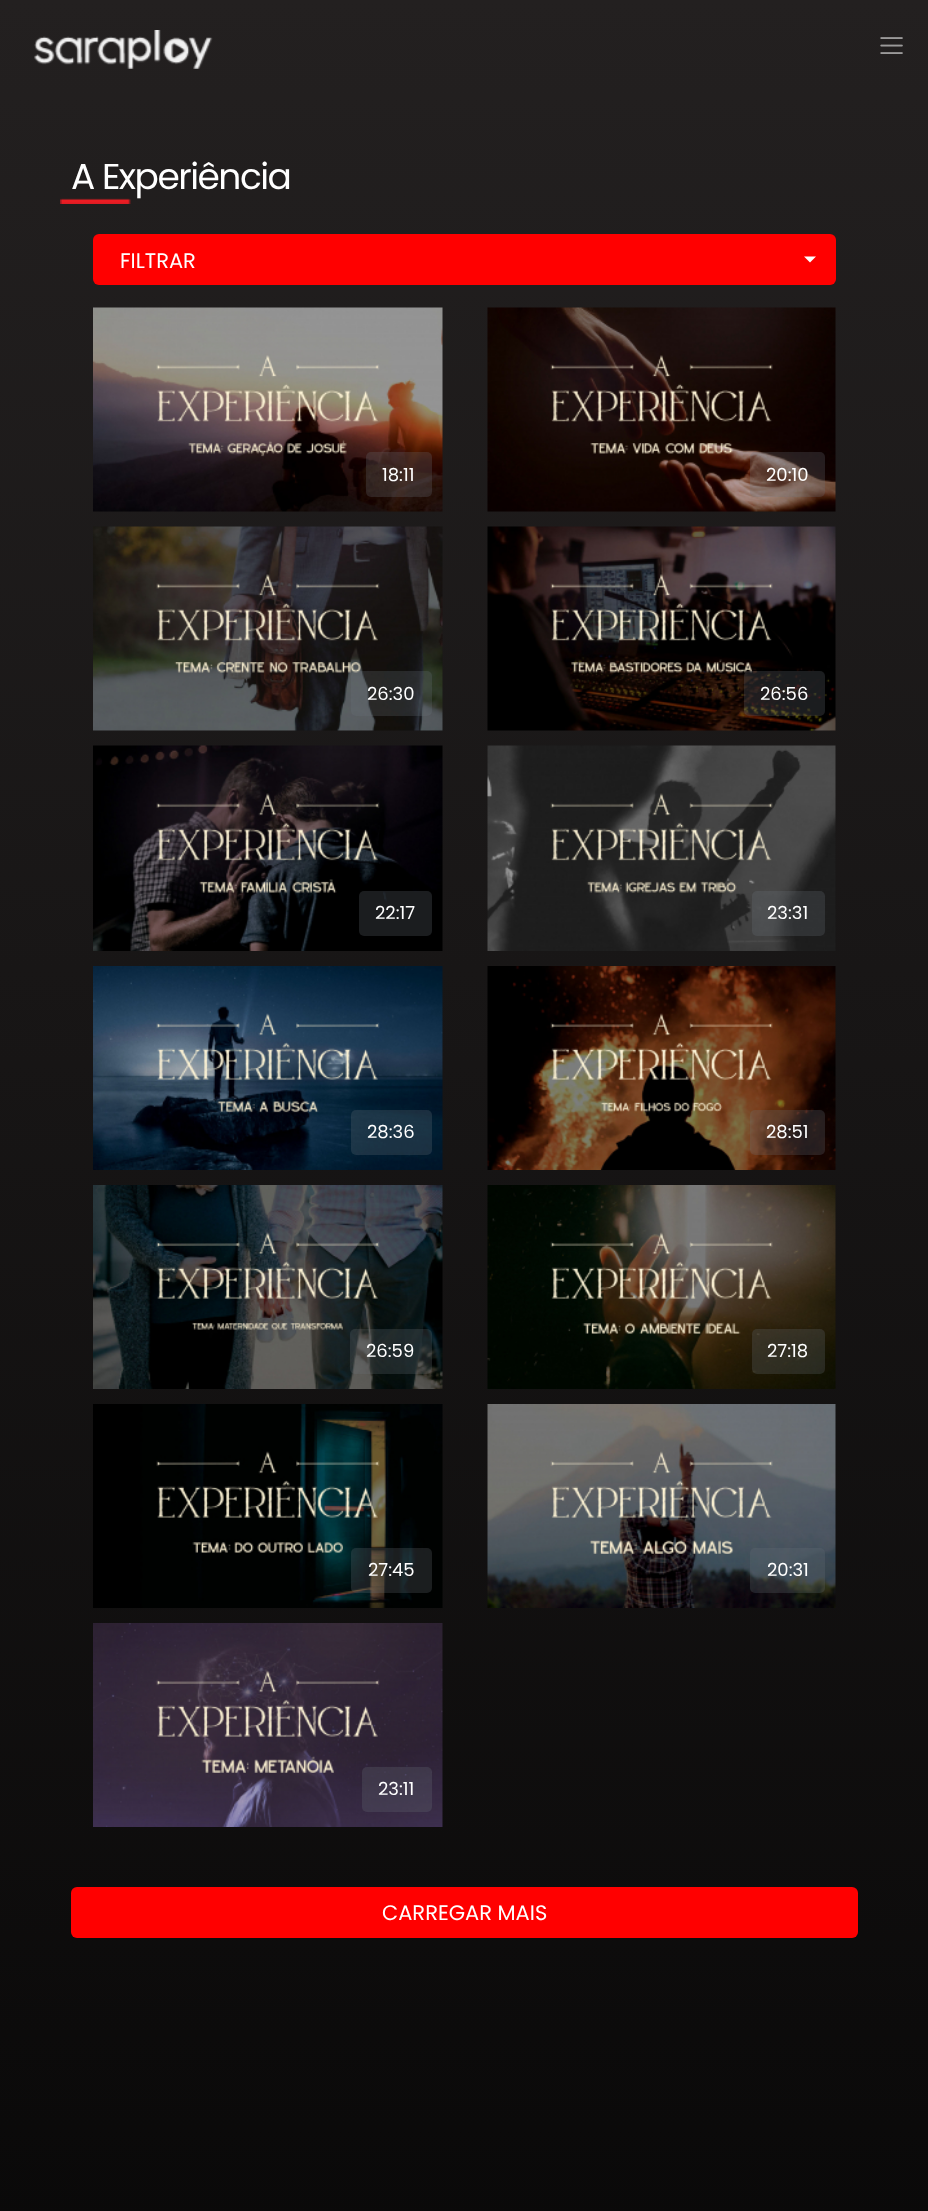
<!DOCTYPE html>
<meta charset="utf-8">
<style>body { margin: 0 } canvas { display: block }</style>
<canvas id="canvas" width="928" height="2211"></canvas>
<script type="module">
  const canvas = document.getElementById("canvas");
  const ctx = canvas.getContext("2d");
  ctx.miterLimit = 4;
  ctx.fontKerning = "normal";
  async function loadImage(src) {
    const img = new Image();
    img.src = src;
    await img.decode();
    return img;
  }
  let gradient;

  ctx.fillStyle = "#ffffff";
  ctx.fillRect(0, 0, 928, 2211);
  gradient = ctx.createLinearGradient(464, 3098, 464, 0);
  gradient.addColorStop(0, "#000000");
  gradient.addColorStop(1, "#232020");
  ctx.fillStyle = gradient;
  ctx.fillRect(0, 0, 928, 2211);
  ctx.drawImage(await loadImage("img1.png"), 34, 30, 179, 39);
  ctx.drawImage(await loadImage("img2.png"), 880, 37, 23, 17);
  ctx.drawImage(await loadImage("img3.png"), 60, 198, 71, 6);
  ctx.letterSpacing = "-1.5px";
  ctx.font = "36px Poppins";
  ctx.fillStyle = "#ffffff";
  ctx.fillText("A Experiência", 71, 189);
  ctx.fillStyle = "#ff0000";
  ctx.beginPath();
  ctx.roundRect(93, 234, 743, 51, 6);
  ctx.fill();
  ctx.letterSpacing = "0px";
  ctx.font = "21px Poppins";
  ctx.fillStyle = "#ffffff";
  ctx.fillText("FILTRAR", 120, 268);
  ctx.beginPath();
  ctx.moveTo(804, 256.5);
  ctx.lineTo(816, 256.5);
  ctx.lineTo(810, 262.5);
  ctx.closePath();
  ctx.fill();
  ctx.drawImage(await loadImage("img4.png"), 93, 307, 350, 205);
  ctx.fillStyle = "rgba(108, 117, 125, 0.25)";
  ctx.beginPath();
  ctx.roundRect(366, 452, 66, 45, 5);
  ctx.fill();
  ctx.font = "18px Poppins";
  ctx.fillStyle = "#ffffff";
  ctx.fillText("18:11", 382, 481);
  ctx.drawImage(await loadImage("img5.png"), 487, 307, 349, 205);
  ctx.fillStyle = "rgba(108, 117, 125, 0.25)";
  ctx.beginPath();
  ctx.roundRect(750, 452, 75, 45, 5);
  ctx.fill();
  ctx.fillStyle = "#ffffff";
  ctx.fillText("20:10", 766, 481);
  ctx.drawImage(await loadImage("img6.png"), 93, 526, 350, 205);
  ctx.fillStyle = "rgba(108, 117, 125, 0.25)";
  ctx.beginPath();
  ctx.roundRect(351, 671, 81, 45, 5);
  ctx.fill();
  ctx.fillStyle = "#ffffff";
  ctx.fillText("26:30", 367, 700);
  ctx.drawImage(await loadImage("img7.png"), 487, 526, 349, 205);
  ctx.fillStyle = "rgba(108, 117, 125, 0.25)";
  ctx.beginPath();
  ctx.roundRect(744, 671, 81, 45, 5);
  ctx.fill();
  ctx.fillStyle = "#ffffff";
  ctx.fillText("26:56", 760, 700);
  ctx.drawImage(await loadImage("img8.png"), 93, 745, 350, 206);
  ctx.fillStyle = "rgba(108, 117, 125, 0.25)";
  ctx.beginPath();
  ctx.roundRect(359, 891, 73, 45, 5);
  ctx.fill();
  ctx.fillStyle = "#ffffff";
  ctx.fillText("22:17", 375, 919);
  ctx.drawImage(await loadImage("img9.png"), 487, 745, 349, 206);
  ctx.fillStyle = "rgba(108, 117, 125, 0.25)";
  ctx.beginPath();
  ctx.roundRect(752, 891, 73, 45, 5);
  ctx.fill();
  ctx.fillStyle = "#ffffff";
  ctx.fillText("23:31", 767, 919);
  ctx.drawImage(await loadImage("img10.png"), 93, 966, 350, 204);
  ctx.fillStyle = "rgba(108, 117, 125, 0.25)";
  ctx.beginPath();
  ctx.roundRect(351, 1110, 81, 45, 5);
  ctx.fill();
  ctx.fillStyle = "#ffffff";
  ctx.fillText("28:36", 367, 1138);
  ctx.drawImage(await loadImage("img11.png"), 487, 966, 349, 204);
  ctx.fillStyle = "rgba(108, 117, 125, 0.25)";
  ctx.beginPath();
  ctx.roundRect(750, 1110, 75, 45, 5);
  ctx.fill();
  ctx.fillStyle = "#ffffff";
  ctx.fillText("28:51", 766, 1138);
  ctx.drawImage(await loadImage("img12.png"), 93, 1185, 350, 204);
  ctx.fillStyle = "rgba(108, 117, 125, 0.25)";
  ctx.beginPath();
  ctx.roundRect(350, 1329, 82, 45, 5);
  ctx.fill();
  ctx.fillStyle = "#ffffff";
  ctx.fillText("26:59", 366, 1357);
  ctx.drawImage(await loadImage("img13.png"), 487, 1185, 349, 204);
  ctx.fillStyle = "rgba(108, 117, 125, 0.25)";
  ctx.beginPath();
  ctx.roundRect(752, 1329, 73, 45, 5);
  ctx.fill();
  ctx.fillStyle = "#ffffff";
  ctx.fillText("27:18", 767, 1357);
  ctx.drawImage(await loadImage("img14.png"), 93, 1404, 350, 204);
  ctx.fillStyle = "rgba(108, 117, 125, 0.25)";
  ctx.beginPath();
  ctx.roundRect(351, 1548, 81, 45, 5);
  ctx.fill();
  ctx.fillStyle = "#ffffff";
  ctx.fillText("27:45", 368, 1576);
  ctx.drawImage(await loadImage("img15.png"), 487, 1404, 349, 204);
  ctx.fillStyle = "rgba(108, 117, 125, 0.25)";
  ctx.beginPath();
  ctx.roundRect(750, 1548, 75, 45, 5);
  ctx.fill();
  ctx.fillStyle = "#ffffff";
  ctx.fillText("20:31", 767, 1576);
  ctx.drawImage(await loadImage("img16.png"), 93, 1623, 350, 204);
  ctx.fillStyle = "rgba(108, 117, 125, 0.25)";
  ctx.beginPath();
  ctx.roundRect(362, 1767, 70, 45, 5);
  ctx.fill();
  ctx.fillStyle = "#ffffff";
  ctx.fillText("23:11", 378, 1795);
  ctx.fillStyle = "#ff0000";
  ctx.beginPath();
  ctx.roundRect(71, 1887, 787, 51, 6);
  ctx.fill();
  ctx.font = "21px Poppins";
  ctx.fillStyle = "#ffffff";
  ctx.fillText("CARREGAR MAIS", 382, 1920);
</script>
